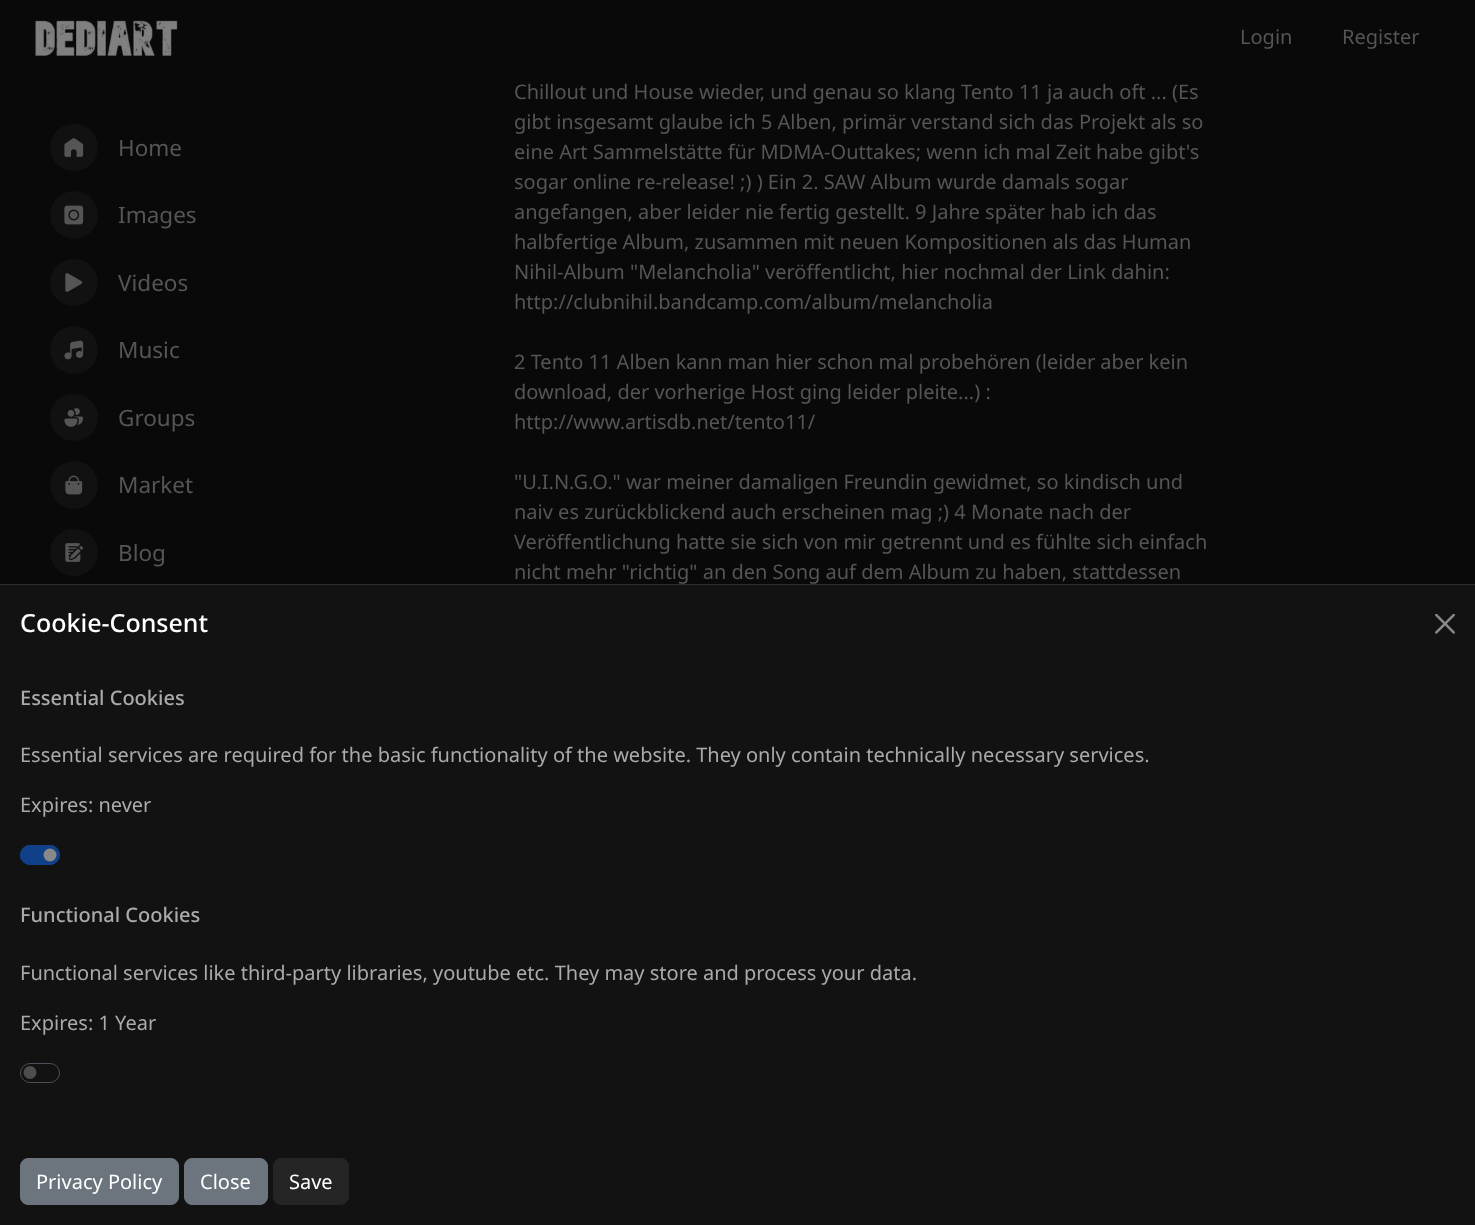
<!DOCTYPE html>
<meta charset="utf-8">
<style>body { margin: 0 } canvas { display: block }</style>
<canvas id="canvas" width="1475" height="1225"></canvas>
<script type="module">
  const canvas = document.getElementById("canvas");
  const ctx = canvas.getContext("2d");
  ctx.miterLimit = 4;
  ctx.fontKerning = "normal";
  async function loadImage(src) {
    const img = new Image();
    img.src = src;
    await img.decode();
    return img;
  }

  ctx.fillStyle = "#090909";
  ctx.fillRect(0, 0, 1475, 1225);
  ctx.drawImage(await loadImage("img1.png"), 35, 20, 143, 36);
  ctx.font = "20px Noto Sans";
  ctx.fillStyle = "#555555";
  ctx.fillText("Login", 1240, 44);
  ctx.fillText("Register", 1342, 44);
  ctx.fillStyle = "#111111";
  ctx.beginPath();
  ctx.roundRect(50, 124, 48, 47, 23.5);
  ctx.fill();
  ctx.drawImage(await loadImage("img2.png"), 64, 138, 20, 19);
  ctx.font = "22.5px Noto Sans";
  ctx.fillStyle = "#555555";
  ctx.fillText("Home", 118, 156);
  ctx.fillStyle = "#111111";
  ctx.beginPath();
  ctx.arc(74, 215, 24, 0, Math.PI * 2);
  ctx.fill();
  ctx.drawImage(await loadImage("img3.png"), 64, 205, 20, 20);
  ctx.fillStyle = "#555555";
  ctx.fillText("Images", 118, 223);
  ctx.fillStyle = "#111111";
  ctx.beginPath();
  ctx.roundRect(50, 259, 48, 47, 23.5);
  ctx.fill();
  ctx.drawImage(await loadImage("img4.png"), 65, 273, 18, 19);
  ctx.fillStyle = "#555555";
  ctx.fillText("Videos", 118, 291);
  ctx.fillStyle = "#111111";
  ctx.beginPath();
  ctx.arc(74, 350, 24, 0, Math.PI * 2);
  ctx.fill();
  ctx.drawImage(await loadImage("img5.png"), 64, 340, 20, 20);
  ctx.fillStyle = "#555555";
  ctx.fillText("Music", 118, 358);
  ctx.fillStyle = "#111111";
  ctx.beginPath();
  ctx.roundRect(50, 394, 48, 47, 23.5);
  ctx.fill();
  ctx.drawImage(await loadImage("img6.png"), 64, 408, 20, 19);
  ctx.fillStyle = "#555555";
  ctx.fillText("Groups", 118, 426);
  ctx.fillStyle = "#111111";
  ctx.beginPath();
  ctx.arc(74, 485, 24, 0, Math.PI * 2);
  ctx.fill();
  ctx.drawImage(await loadImage("img7.png"), 65, 475, 18, 20);
  ctx.fillStyle = "#555555";
  ctx.fillText("Market", 118, 493);
  ctx.fillStyle = "#111111";
  ctx.beginPath();
  ctx.roundRect(50, 529, 48, 47, 23.5);
  ctx.fill();
  ctx.drawImage(await loadImage("img8.png"), 65, 543, 19, 19);
  ctx.fillStyle = "#555555";
  ctx.fillText("Blog", 118, 561);
  ctx.font = "20px Noto Sans";
  ctx.fillText("Chillout und House wieder, und genau so klang Tento 11 ja auch oft ... (Es", 514, 99);
  ctx.fillText("gibt insgesamt glaube ich 5 Alben, primär verstand sich das Projekt als so", 514, 129);
  ctx.fillText("eine Art Sammelstätte für MDMA-Outtakes; wenn ich mal Zeit habe gibt's", 514, 159);
  ctx.fillText("sogar online re-release! ;) ) Ein 2. SAW Album wurde damals sogar", 514, 189);
  ctx.fillText("angefangen, aber leider nie fertig gestellt. 9 Jahre später hab ich das", 514, 219);
  ctx.fillText("halbfertige Album, zusammen mit neuen Kompositionen als das Human", 514, 249);
  ctx.fillText("Nihil-Album \"Melancholia\" veröffentlicht, hier nochmal der Link dahin:", 514, 279);
  ctx.fillText("http://clubnihil.bandcamp.com/album/melancholia", 514, 309);
  ctx.fillText("2 Tento 11 Alben kann man hier schon mal probehören (leider aber kein", 514, 369);
  ctx.fillText("download, der vorherige Host ging leider pleite...) :", 514, 399);
  ctx.fillText("http://www.artisdb.net/tento11/", 514, 429);
  ctx.fillText("\"U.I.N.G.O.\" war meiner damaligen Freundin gewidmet, so kindisch und", 514, 489);
  ctx.fillText("naiv es zurückblickend auch erscheinen mag ;) 4 Monate nach der", 514, 519);
  ctx.fillText("Veröffentlichung hatte sie sich von mir getrennt und es fühlte sich einfach", 514, 549);
  ctx.fillText("nicht mehr \"richtig\" an den Song auf dem Album zu haben, stattdessen", 514, 579);
  ctx.fillStyle = "#121212";
  ctx.fillRect(0, 585, 1475, 640);
  ctx.fillStyle = "#2e2e2e";
  ctx.fillRect(0, 584, 1475, 1);
  ctx.font = "500 25px Noto Sans";
  ctx.fillStyle = "#ffffff";
  ctx.fillText("Cookie-Consent", 20, 632);
  ctx.drawImage(await loadImage("img9.png"), 1435, 614, 20, 20);
  ctx.font = "500 20px Noto Sans";
  ctx.fillStyle = "#aaaaaa";
  ctx.fillText("Essential Cookies", 20, 705);
  ctx.font = "20px Noto Sans";
  ctx.fillText("Essential services are required for the basic functionality of the website. They only contain technically necessary services.", 20, 762);
  ctx.fillText("Expires: never", 20, 812);
  ctx.fillStyle = "#104088";
  ctx.beginPath();
  ctx.roundRect(20, 845, 40, 20, 10);
  ctx.fill();
  ctx.fillStyle = "#898989";
  ctx.beginPath();
  ctx.arc(50, 855, 6.5, 0, Math.PI * 2);
  ctx.fill();
  ctx.beginPath();
  ctx.roundRect(20.5, 845.5, 39, 19, 9.5);
  ctx.strokeStyle = "#104088";
  ctx.stroke();
  ctx.font = "500 20px Noto Sans";
  ctx.fillStyle = "#aaaaaa";
  ctx.fillText("Functional Cookies", 20, 922);
  ctx.font = "20px Noto Sans";
  ctx.fillText("Functional services like third-party libraries, youtube etc. They may store and process your data.", 20, 980);
  ctx.fillText("Expires: 1 Year", 20, 1030);
  ctx.fillStyle = "#4d4d4d";
  ctx.beginPath();
  ctx.arc(30, 1072.5, 6.5, 0, Math.PI * 2);
  ctx.fill();
  ctx.beginPath();
  ctx.roundRect(20.5, 1063.5, 39, 19, 9.5);
  ctx.strokeStyle = "#495057";
  ctx.stroke();
  ctx.fillStyle = "#6c757d";
  ctx.beginPath();
  ctx.roundRect(20.5, 1158.5, 158, 46, 7.5);
  ctx.fill();
  ctx.strokeStyle = "#6c757d";
  ctx.stroke();
  ctx.fillStyle = "#ffffff";
  ctx.fillText("Privacy Policy", 36, 1189);
  ctx.fillStyle = "#6c757d";
  ctx.beginPath();
  ctx.roundRect(184.5, 1158.5, 83, 46, 7.5);
  ctx.fill();
  ctx.stroke();
  ctx.fillStyle = "#ffffff";
  ctx.fillText("Close", 200, 1189);
  ctx.fillStyle = "#252525";
  ctx.beginPath();
  ctx.roundRect(273.5, 1158.5, 75, 46, 7.5);
  ctx.fill();
  ctx.strokeStyle = "#252525";
  ctx.stroke();
  ctx.fillStyle = "#ffffff";
  ctx.fillText("Save", 289, 1189);
</script>
